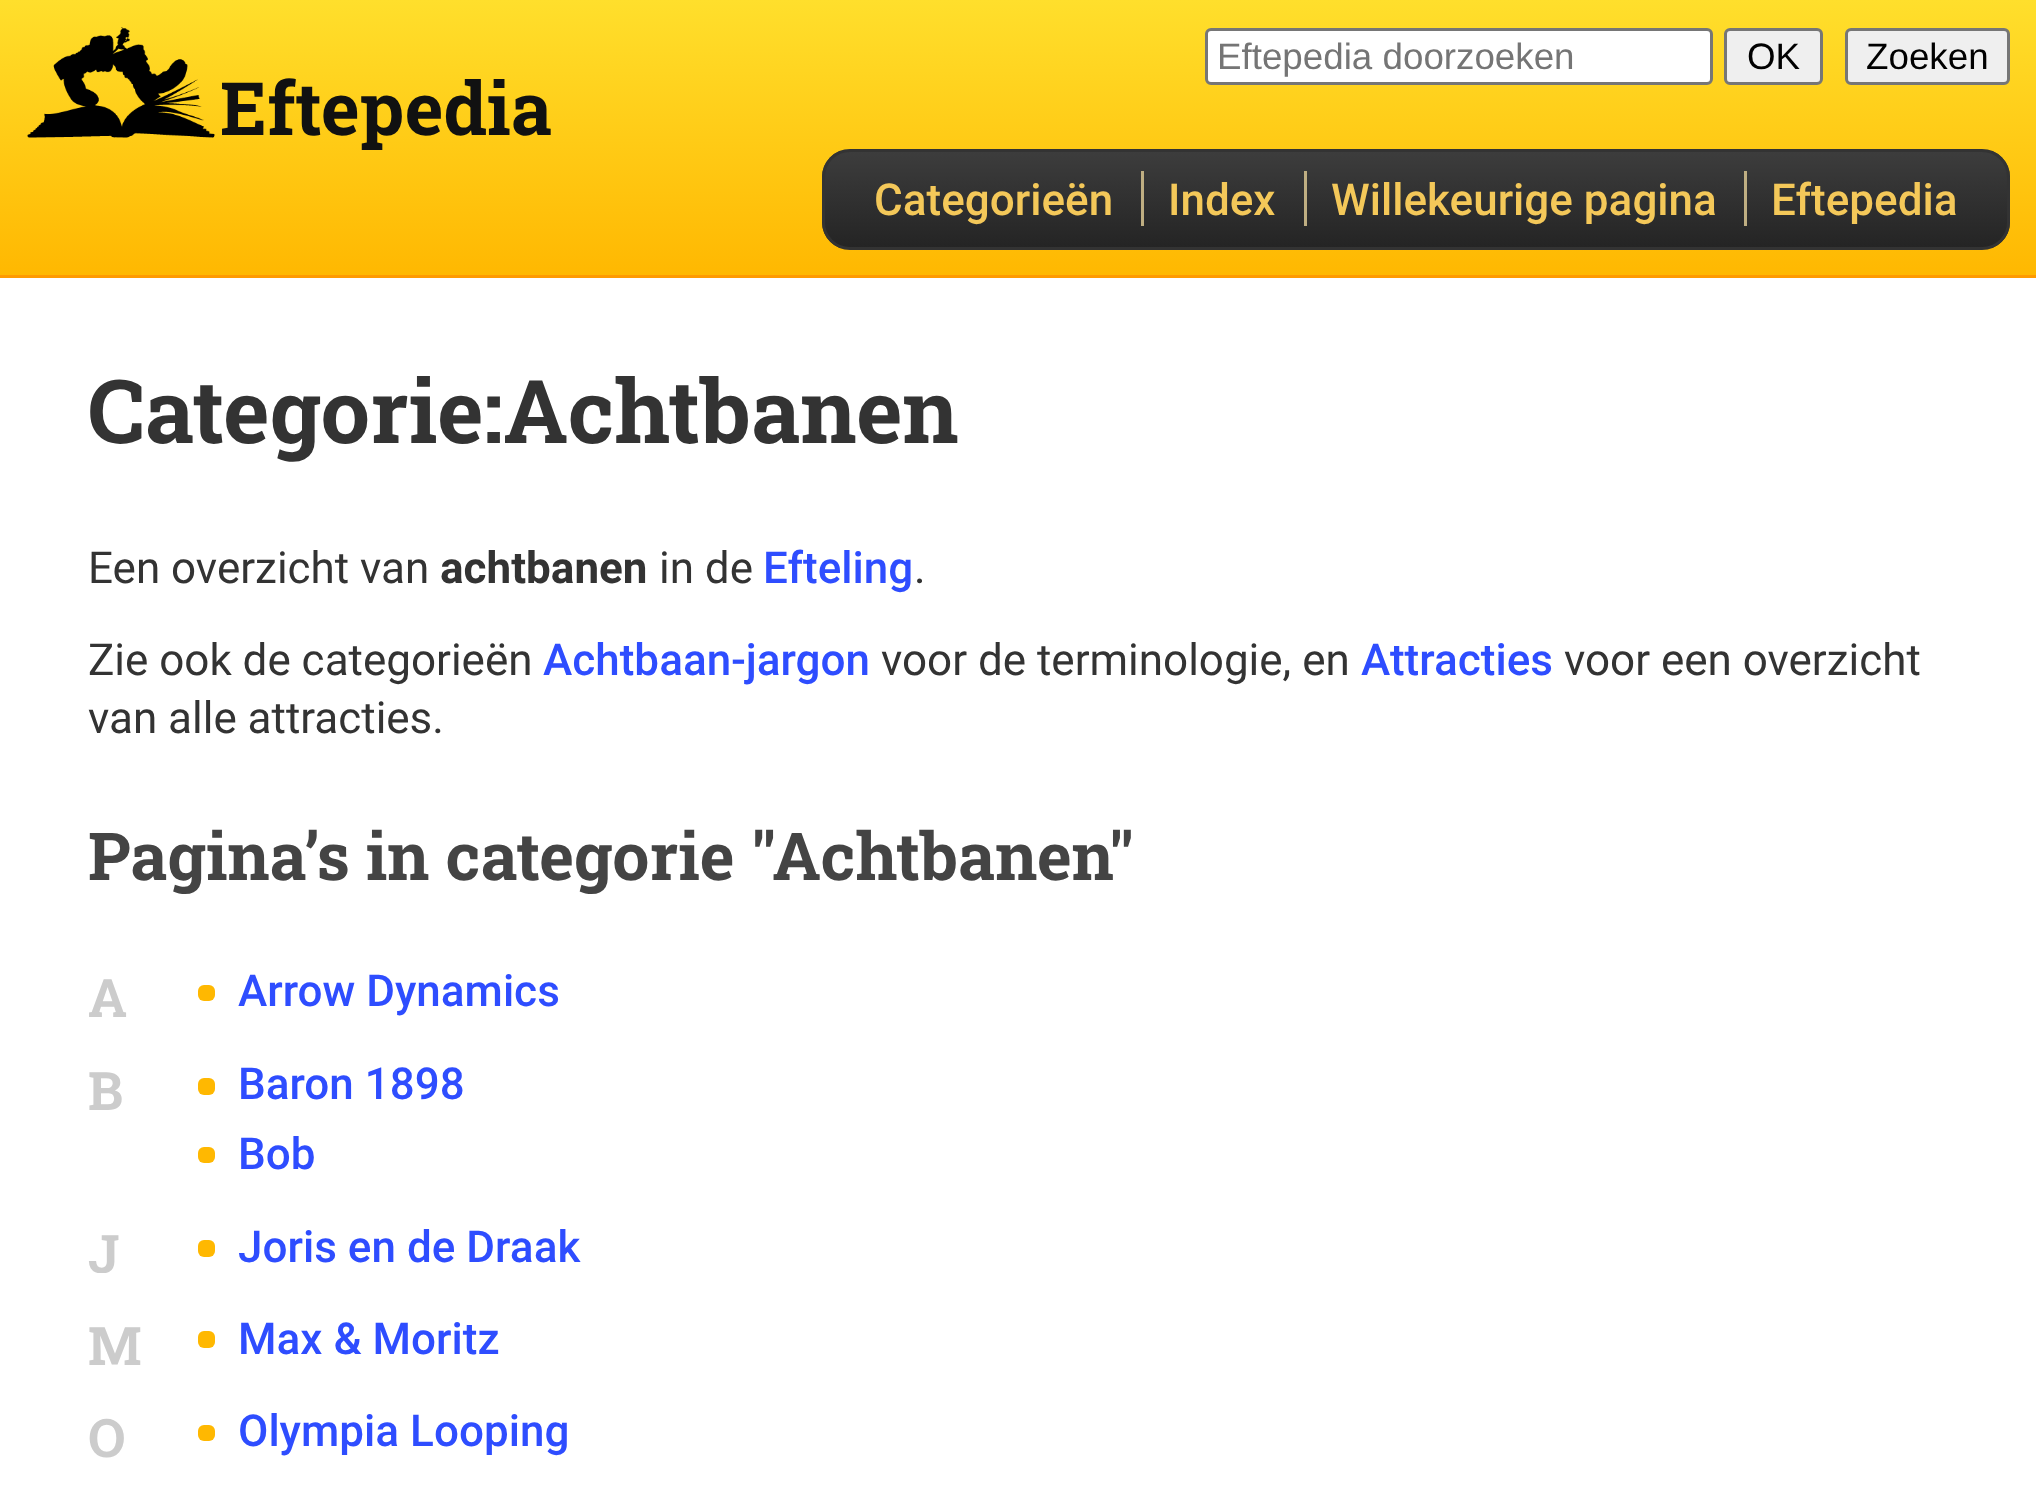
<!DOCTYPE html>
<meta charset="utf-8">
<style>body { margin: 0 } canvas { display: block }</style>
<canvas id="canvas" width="2036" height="1490"></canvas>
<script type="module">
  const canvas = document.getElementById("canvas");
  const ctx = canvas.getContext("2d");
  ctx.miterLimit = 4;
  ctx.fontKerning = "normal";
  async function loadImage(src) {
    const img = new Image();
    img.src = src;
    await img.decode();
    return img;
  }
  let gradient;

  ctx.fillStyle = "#ffffff";
  ctx.fillRect(0, 0, 2036, 1490);
  gradient = ctx.createLinearGradient(1019, 0, 1019, 275);
  gradient.addColorStop(0, "#ffdf2c");
  gradient.addColorStop(1, "#ffb801");
  ctx.fillStyle = gradient;
  ctx.fillRect(0, 0, 2036, 275);
  ctx.fillStyle = "#ff9a00";
  ctx.fillRect(0, 275, 2036, 3);
  ctx.drawImage(await loadImage("img1.png"), 27, 27, 188, 111);
  ctx.fillStyle = "#ffffff";
  ctx.beginPath();
  ctx.roundRect(1206.5, 29.5, 505, 54, 4.5);
  ctx.fill();
  ctx.strokeStyle = "#767676";
  ctx.lineWidth = 3;
  ctx.stroke();
  ctx.font = "36.75px Liberation Sans";
  ctx.fillStyle = "#757575";
  ctx.fillText("Eftepedia doorzoeken", 1217, 69);
  ctx.fillStyle = "#efefef";
  ctx.beginPath();
  ctx.roundRect(1725.5, 29.5, 96, 54, 4.5);
  ctx.fill();
  ctx.stroke();
  ctx.fillStyle = "#000000";
  ctx.fillText("OK", 1747, 69);
  ctx.fillStyle = "#efefef";
  ctx.beginPath();
  ctx.roundRect(1846.5, 29.5, 162, 54, 4.5);
  ctx.fill();
  ctx.stroke();
  ctx.fillStyle = "#000000";
  ctx.fillText("Zoeken", 1866, 69);
  ctx.font = "bold 73.5px Roboto Slab";
  ctx.fillStyle = "#111111";
  ctx.fillText("Eftepedia", 220, 135);
  ctx.save();
  ctx.beginPath();
  ctx.roundRect(822, 149, 1188, 101, 28);
  ctx.clip();
  gradient = ctx.createLinearGradient(1416, 151, 1416, 248);
  gradient.addColorStop(0, "#3d3d3d");
  gradient.addColorStop(1, "#242424");
  ctx.fillStyle = gradient;
  ctx.fillRect(822, 151, 1188, 97);
  ctx.restore();
  ctx.beginPath();
  ctx.roundRect(823.5, 150.5, 1185, 98, 26.5);
  ctx.strokeStyle = "#333333";
  ctx.stroke();
  ctx.font = "500 44px Roboto";
  ctx.fillStyle = "#f4c859";
  ctx.fillText("Categorieën", 874, 215);
  ctx.fillStyle = "#bfae82";
  ctx.fillRect(1141, 171, 3, 55);
  ctx.fillStyle = "#f4c859";
  ctx.fillText("Index", 1168, 215);
  ctx.fillStyle = "#bfae82";
  ctx.fillRect(1304, 171, 3, 55);
  ctx.fillStyle = "#f4c859";
  ctx.fillText("Willekeurige pagina", 1331, 215);
  ctx.fillStyle = "#bfae82";
  ctx.fillRect(1744, 171, 3, 55);
  ctx.fillStyle = "#f4c859";
  ctx.fillText("Eftepedia", 1771, 215);
  ctx.font = "bold 88px Roboto Slab";
  ctx.fillStyle = "#333333";
  ctx.fillText("Categorie:Achtbanen", 88, 443);
  ctx.font = "44px Roboto";
  ctx.fillText("Een overzicht van", 88, 583);
  ctx.font = "bold 44px Roboto";
  ctx.fillText("achtbanen", 440, 583);
  ctx.font = "44px Roboto";
  ctx.fillText("in de", 659, 583);
  ctx.font = "500 44px Roboto";
  ctx.fillStyle = "#2e4dff";
  ctx.fillText("Efteling", 763, 583);
  ctx.font = "44px Roboto";
  ctx.fillStyle = "#333333";
  ctx.fillText(".", 914, 583);
  ctx.fillText("Zie ook de categorieën", 88, 675);
  ctx.font = "500 44px Roboto";
  ctx.fillStyle = "#2e4dff";
  ctx.fillText("Achtbaan-jargon", 543, 675);
  ctx.font = "44px Roboto";
  ctx.fillStyle = "#333333";
  ctx.fillText("voor de terminologie, en", 881, 675);
  ctx.font = "500 44px Roboto";
  ctx.fillStyle = "#2e4dff";
  ctx.fillText("Attracties", 1361, 675);
  ctx.font = "44px Roboto";
  ctx.fillStyle = "#333333";
  ctx.fillText("voor een overzicht", 1564, 675);
  ctx.fillText("van alle attracties.", 88, 733);
  ctx.font = "bold 66px Roboto Slab";
  ctx.fillStyle = "#444444";
  ctx.fillText("Pagina’s in categorie \"Achtbanen\"", 88, 880);
  ctx.font = "bold 53px Roboto Slab";
  ctx.fillStyle = "#cccccc";
  ctx.fillText("A", 88, 1017);
  ctx.fillStyle = "#ffb801";
  ctx.beginPath();
  ctx.roundRect(198, 985, 17, 16, 6);
  ctx.fill();
  ctx.font = "500 44px Roboto";
  ctx.fillStyle = "#2e4dff";
  ctx.fillText("Arrow Dynamics", 238, 1006);
  ctx.font = "bold 53px Roboto Slab";
  ctx.fillStyle = "#cccccc";
  ctx.fillText("B", 88, 1110);
  ctx.fillStyle = "#ffb801";
  ctx.beginPath();
  ctx.roundRect(198, 1078, 17, 17, 6);
  ctx.fill();
  ctx.font = "500 44px Roboto";
  ctx.fillStyle = "#2e4dff";
  ctx.fillText("Baron 1898", 238, 1099);
  ctx.fillStyle = "#ffb801";
  ctx.beginPath();
  ctx.roundRect(198, 1147, 17, 16, 6);
  ctx.fill();
  ctx.fillStyle = "#2e4dff";
  ctx.fillText("Bob", 238, 1169);
  ctx.save();
  ctx.beginPath();
  ctx.rect(88, 1221, 83, 52);
  ctx.clip();
  ctx.font = "bold 53px Roboto Slab";
  ctx.fillStyle = "#cccccc";
  ctx.fillText("J", 88, 1273);
  ctx.restore();
  ctx.fillStyle = "#ffb801";
  ctx.beginPath();
  ctx.roundRect(198, 1240, 17, 17, 6);
  ctx.fill();
  ctx.fillStyle = "#2e4dff";
  ctx.fillText("Joris en de Draak", 238, 1262);
  ctx.font = "bold 53px Roboto Slab";
  ctx.fillStyle = "#cccccc";
  ctx.fillText("M", 88, 1365);
  ctx.fillStyle = "#ffb801";
  ctx.beginPath();
  ctx.roundRect(198, 1331, 17, 17, 6);
  ctx.fill();
  ctx.font = "500 44px Roboto";
  ctx.fillStyle = "#2e4dff";
  ctx.fillText("Max & Moritz", 238, 1354);
  ctx.font = "bold 53px Roboto Slab";
  ctx.fillStyle = "#cccccc";
  ctx.fillText("O", 88, 1457);
  ctx.fillStyle = "#ffb801";
  ctx.beginPath();
  ctx.roundRect(198, 1425, 17, 16, 6);
  ctx.fill();
  ctx.font = "500 44px Roboto";
  ctx.fillStyle = "#2e4dff";
  ctx.fillText("Olympia Looping", 238, 1446);
</script>
